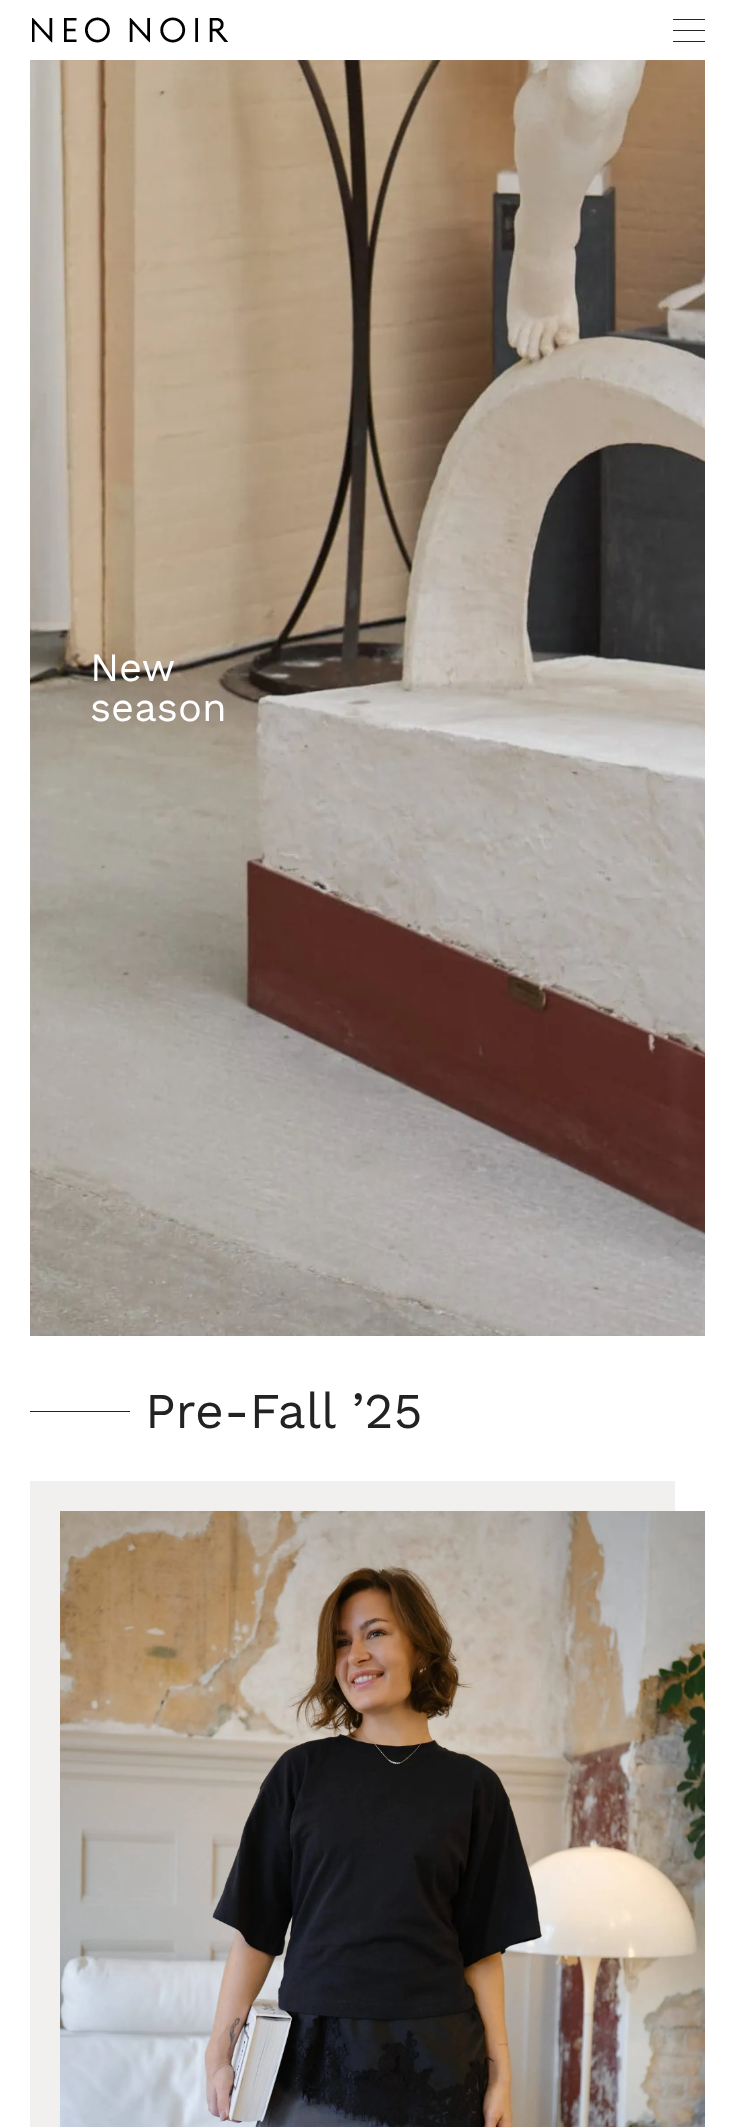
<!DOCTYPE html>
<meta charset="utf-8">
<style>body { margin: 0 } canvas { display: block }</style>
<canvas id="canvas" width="735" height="2127"></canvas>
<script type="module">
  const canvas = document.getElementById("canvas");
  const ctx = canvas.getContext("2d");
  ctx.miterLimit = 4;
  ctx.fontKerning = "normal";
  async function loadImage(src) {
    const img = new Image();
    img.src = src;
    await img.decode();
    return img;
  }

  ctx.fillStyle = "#ffffff";
  ctx.fillRect(0, 0, 735, 2127);
  ctx.drawImage(await loadImage("img1.png"), 32, 17, 196, 26);
  ctx.drawImage(await loadImage("img2.png"), 673, 19, 32, 23);
  ctx.drawImage(await loadImage("img3.png"), 30, 60, 675, 1276);
  ctx.font = "40px Work Sans";
  ctx.fillText("New", 90, 681);
  ctx.fillText("season", 90, 721);
  ctx.fillStyle = "#222222";
  ctx.fillRect(30, 1411, 100, 1);
  ctx.font = "50px Work Sans";
  ctx.fillText("Pre-Fall ’25", 145, 1428);
  ctx.fillStyle = "#f2f0ee";
  ctx.fillRect(30, 1481, 645, 646);
  ctx.drawImage(await loadImage("img4.png"), 60, 1511, 645, 616);
</script>
